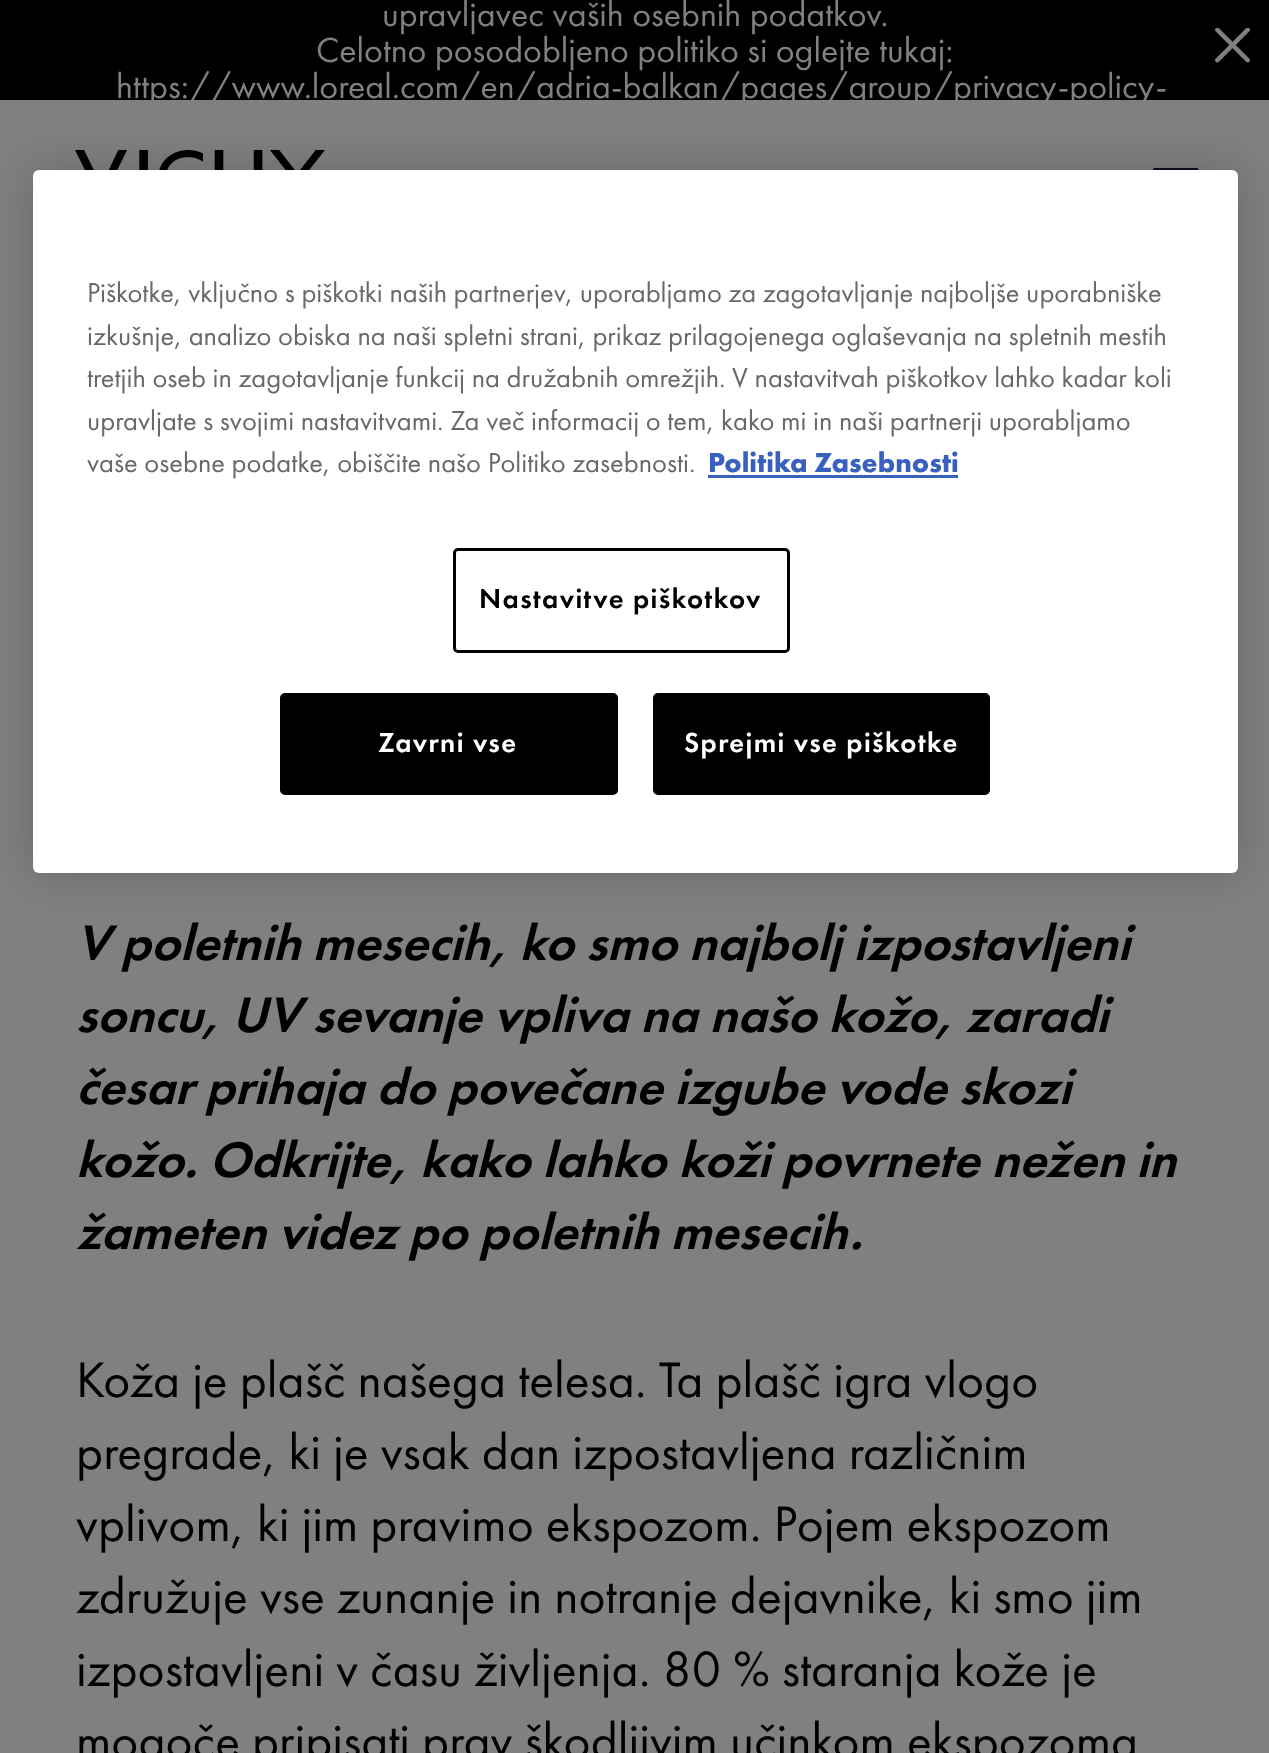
<!DOCTYPE html>
<meta charset="utf-8">
<style>body { margin: 0 } canvas { display: block }</style>
<canvas id="canvas" width="1269" height="1753"></canvas>
<script type="module">
  const canvas = document.getElementById("canvas");
  const ctx = canvas.getContext("2d");
  ctx.miterLimit = 4;
  ctx.fontKerning = "normal";
  async function loadImage(src) {
    const img = new Image();
    img.src = src;
    await img.decode();
    return img;
  }

  ctx.fillStyle = "#808080";
  ctx.fillRect(0, 0, 1269, 1753);
  ctx.fillStyle = "#000000";
  ctx.fillRect(0, 0, 1269, 100);
  ctx.font = "36px Futura PT";
  ctx.fillStyle = "#808080";
  ctx.fillText("upravljavec vaših osebnih podatkov.", 382, 26);
  ctx.fillText("Celotno posodobljeno politiko si oglejte tukaj:", 316, 62);
  ctx.save();
  ctx.beginPath();
  ctx.rect(75, 0, 1120, 100);
  ctx.clip();
  ctx.fillText("https://www.loreal.com/en/adria-balkan/pages/group/privacy-policy-", 116, 98);
  ctx.restore();
  ctx.drawImage(await loadImage("img1.png"), 1215, 28, 35, 35);
  ctx.drawImage(await loadImage("img2.png"), 75, 150, 250, 20);
  ctx.drawImage(await loadImage("img3.png"), 1153, 168, 46, 2);
  ctx.fillStyle = "rgba(0, 0, 0, 0.2)";
  ctx.filter = "blur(22.5px)";
  ctx.beginPath();
  ctx.roundRect(33, 170, 1205, 703, 6);
  ctx.fill();
  ctx.filter = "none";
  ctx.fillStyle = "#ffffff";
  ctx.beginPath();
  ctx.roundRect(33, 170, 1205, 703, 6);
  ctx.fill();
  ctx.font = "28.45px Futura PT";
  ctx.fillStyle = "#696969";
  ctx.fillText("Piškotke, vključno s piškotki naših partnerjev, uporabljamo za zagotavljanje najboljše uporabniške", 87, 302);
  ctx.fillText("izkušnje, analizo obiska na naši spletni strani, prikaz prilagojenega oglaševanja na spletnih mestih", 87, 345);
  ctx.fillText("tretjih oseb in zagotavljanje funkcij na družabnih omrežjih. V nastavitvah piškotkov lahko kadar koli", 87, 387);
  ctx.fillText("upravljate s svojimi nastavitvami. Za več informacij o tem, kako mi in naši partnerji uporabljamo", 87, 430);
  ctx.fillText("vaše osebne podatke, obiščite našo Politiko zasebnosti.", 87, 472);
  ctx.font = "bold 28.45px Futura PT";
  ctx.fillStyle = "#3860be";
  ctx.fillText("Politika Zasebnosti", 708, 472);
  ctx.fillRect(708, 475, 250, 3);
  ctx.beginPath();
  ctx.roundRect(454.5, 549.5, 334, 102, 3.5);
  ctx.strokeStyle = "#000000";
  ctx.lineWidth = 3;
  ctx.stroke();
  ctx.letterSpacing = "1.4px";
  ctx.font = "500 28.45px Futura PT";
  ctx.fillStyle = "#000000";
  ctx.fillText("Nastavitve piškotkov", 479, 608);
  ctx.beginPath();
  ctx.roundRect(281.5, 694.5, 335, 99, 3.5);
  ctx.fill();
  ctx.stroke();
  ctx.fillStyle = "#ffffff";
  ctx.fillText("Zavrni vse", 378, 752);
  ctx.fillStyle = "#000000";
  ctx.beginPath();
  ctx.roundRect(654.5, 694.5, 334, 99, 3.5);
  ctx.fill();
  ctx.stroke();
  ctx.fillStyle = "#ffffff";
  ctx.fillText("Sprejmi vse piškotke", 684, 752);
  ctx.letterSpacing = "0px";
  ctx.font = "italic 500 51.6px Futura PT";
  ctx.fillStyle = "#000000";
  ctx.fillText("V poletnih mesecih, ko smo najbolj izpostavljeni", 76, 960);
  ctx.fillText("soncu, UV sevanje vpliva na našo kožo, zaradi", 76, 1032);
  ctx.fillText("česar prihaja do povečane izgube vode skozi", 76, 1104);
  ctx.fillText("kožo. Odkrijte, kako lahko koži povrnete nežen in", 76, 1177);
  ctx.fillText("žameten videz po poletnih mesecih.", 76, 1249);
  ctx.font = "51.6px Futura PT";
  ctx.fillText("Koža je plašč našega telesa. Ta plašč igra vlogo", 76, 1397);
  ctx.fillText("pregrade, ki je vsak dan izpostavljena različnim", 76, 1469);
  ctx.fillText("vplivom, ki jim pravimo ekspozom. Pojem ekspozom", 76, 1541);
  ctx.fillText("združuje vse zunanje in notranje dejavnike, ki smo jim", 76, 1613);
  ctx.fillText("izpostavljeni v času življenja. 80 % staranja kože je", 76, 1686);
  ctx.fillText("mogoče pripisati prav škodljivim učinkom ekspozoma", 76, 1758);
</script>
